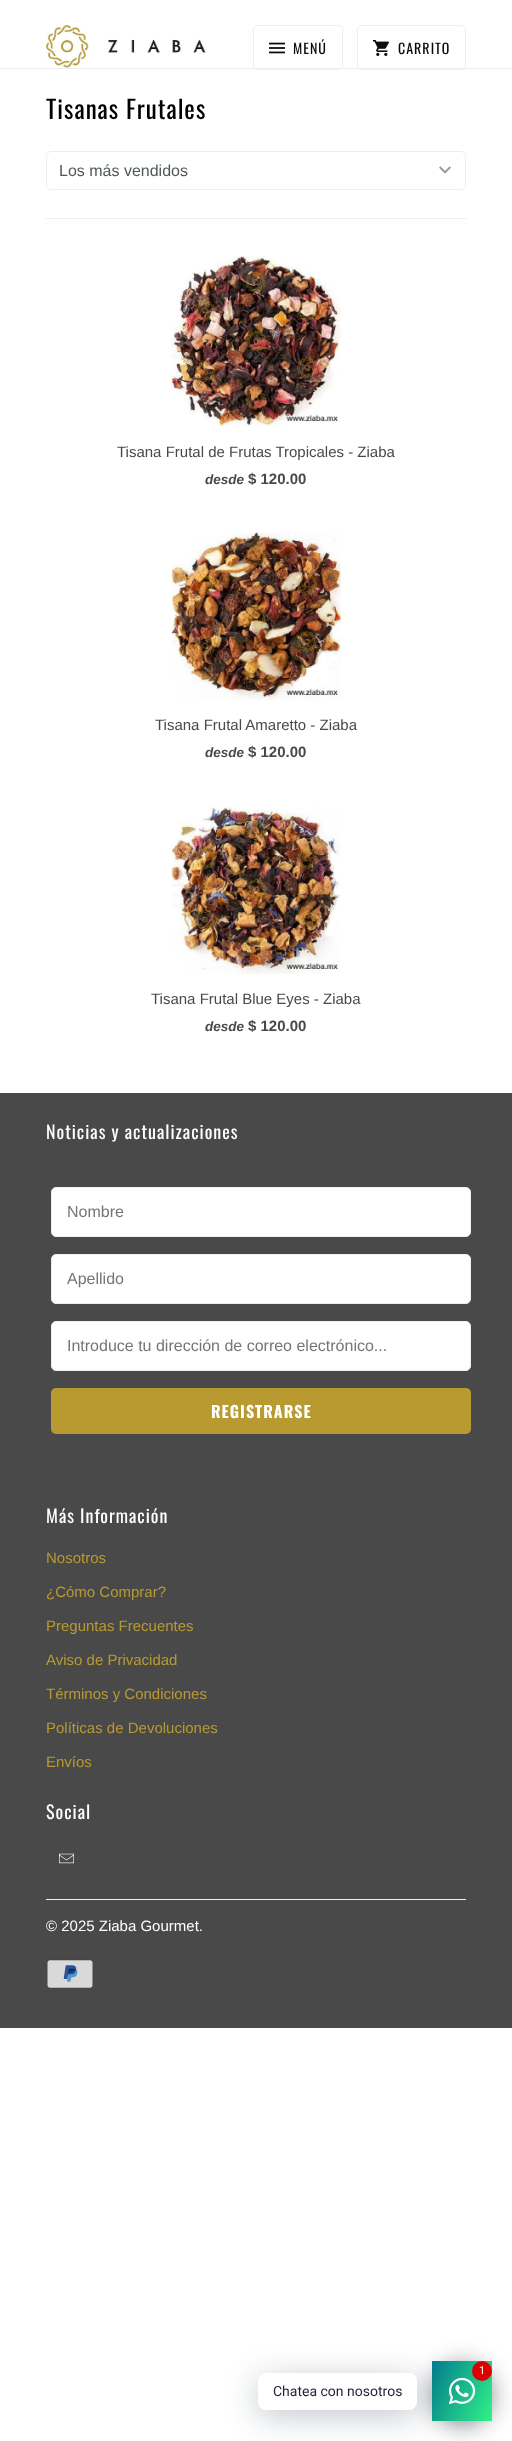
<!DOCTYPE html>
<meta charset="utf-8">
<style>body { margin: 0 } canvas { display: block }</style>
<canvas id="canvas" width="512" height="2441"></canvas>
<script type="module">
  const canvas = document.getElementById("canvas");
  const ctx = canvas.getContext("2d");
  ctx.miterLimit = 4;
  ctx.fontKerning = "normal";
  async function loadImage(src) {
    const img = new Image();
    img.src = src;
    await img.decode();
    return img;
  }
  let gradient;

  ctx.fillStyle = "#ffffff";
  ctx.fillRect(0, 0, 512, 2441);
  ctx.fillStyle = "#eeeeee";
  ctx.fillRect(0, 68, 512, 1);
  ctx.drawImage(await loadImage("img1.png"), 46, 25, 160, 43);
  ctx.beginPath();
  ctx.roundRect(253.5, 25.5, 89, 44, 4.5);
  ctx.strokeStyle = "#eeeeee";
  ctx.stroke();
  ctx.drawImage(await loadImage("img2.png"), 269, 42, 16, 12);
  ctx.letterSpacing = "1px";
  ctx.font = "14px Oswald";
  ctx.fillStyle = "#0c0c0c";
  ctx.fillText("MENÚ", 293, 54);
  ctx.beginPath();
  ctx.roundRect(357.5, 25.5, 108, 44, 4.5);
  ctx.stroke();
  ctx.drawImage(await loadImage("img3.png"), 373, 40, 16, 16);
  ctx.fillText("CARRITO", 398, 54);
  ctx.fillStyle = "#eeeeee";
  ctx.fillRect(46, 218, 420, 1);
  ctx.font = "25px Oswald";
  ctx.fillStyle = "#000000";
  ctx.fillText("Tisanas Frutales", 46, 119);
  ctx.drawImage(await loadImage("img4.png"), 439, 166, 12, 8);
  ctx.beginPath();
  ctx.roundRect(46.5, 151.5, 419, 38, 4.5);
  ctx.stroke();
  ctx.letterSpacing = "0px";
  ctx.font = "16px Liberation Sans";
  ctx.fillStyle = "#51595d";
  ctx.fillText("Los más vendidos", 59, 176);
  ctx.drawImage(await loadImage("img5.png"), 171, 256, 170, 170);
  ctx.font = "15px Liberation Sans";
  ctx.fillStyle = "#494949";
  ctx.fillText("Tisana Frutal de Frutas Tropicales - Ziaba", 117, 457);
  ctx.font = "italic bold 13.5px Liberation Sans";
  ctx.fillText("desde", 205, 484);
  ctx.font = "bold 15px Liberation Sans";
  ctx.fillText("$ 120.00", 248, 484);
  ctx.drawImage(await loadImage("img6.png"), 171, 532, 170, 168);
  ctx.font = "15px Liberation Sans";
  ctx.fillText("Tisana Frutal Amaretto - Ziaba", 155, 730);
  ctx.font = "italic bold 13.5px Liberation Sans";
  ctx.fillText("desde", 205, 757);
  ctx.font = "bold 15px Liberation Sans";
  ctx.fillText("$ 120.00", 248, 757);
  ctx.drawImage(await loadImage("img7.png"), 171, 807, 170, 167);
  ctx.font = "15px Liberation Sans";
  ctx.fillText("Tisana Frutal Blue Eyes - Ziaba", 151, 1004);
  ctx.font = "italic bold 13.5px Liberation Sans";
  ctx.fillText("desde", 205, 1031);
  ctx.font = "bold 15px Liberation Sans";
  ctx.fillText("$ 120.00", 248, 1031);
  ctx.fillRect(0, 1093, 512, 935);
  ctx.letterSpacing = "1px";
  ctx.font = "18px Oswald";
  ctx.fillStyle = "#ffffff";
  ctx.fillText("Noticias y actualizaciones", 46, 1139);
  ctx.beginPath();
  ctx.roundRect(51.5, 1187.5, 419, 49, 4.5);
  ctx.fill();
  ctx.stroke();
  ctx.letterSpacing = "0px";
  ctx.font = "16px Liberation Sans";
  ctx.fillStyle = "#757575";
  ctx.fillText("Nombre", 67, 1217);
  ctx.fillStyle = "#ffffff";
  ctx.beginPath();
  ctx.roundRect(51.5, 1254.5, 419, 49, 4.5);
  ctx.fill();
  ctx.stroke();
  ctx.fillStyle = "#757575";
  ctx.fillText("Apellido", 67, 1284);
  ctx.fillStyle = "#ffffff";
  ctx.beginPath();
  ctx.roundRect(51.5, 1321.5, 419, 49, 4.5);
  ctx.fill();
  ctx.stroke();
  ctx.fillStyle = "#757575";
  ctx.fillText("Introduce tu dirección de correo electrónico...", 67, 1351);
  ctx.fillStyle = "#b99a30";
  ctx.beginPath();
  ctx.roundRect(51, 1388, 420, 46, 5);
  ctx.fill();
  ctx.letterSpacing = "1px";
  ctx.font = "bold 16px Oswald";
  ctx.fillStyle = "#ffffff";
  ctx.fillText("REGISTRARSE", 211, 1418);
  ctx.font = "18px Oswald";
  ctx.fillText("Más Información", 46, 1523);
  ctx.letterSpacing = "0px";
  ctx.font = "15px Liberation Sans";
  ctx.fillStyle = "#b99a30";
  ctx.fillText("Nosotros", 46, 1563);
  ctx.fillText("¿Cómo Comprar?", 46, 1597);
  ctx.fillText("Preguntas Frecuentes", 46, 1631);
  ctx.fillText("Aviso de Privacidad", 46, 1665);
  ctx.fillText("Términos y Condiciones", 46, 1699);
  ctx.fillText("Políticas de Devoluciones", 46, 1733);
  ctx.fillText("Envíos", 46, 1767);
  ctx.letterSpacing = "1px";
  ctx.font = "18px Oswald";
  ctx.fillStyle = "#ffffff";
  ctx.fillText("Social", 46, 1819);
  ctx.drawImage(await loadImage("img8.png"), 59, 1853, 15, 11);
  ctx.fillStyle = "#eeeeee";
  ctx.fillRect(46, 1899, 420, 1);
  ctx.letterSpacing = "0px";
  ctx.font = "15px Liberation Sans";
  ctx.fillStyle = "#ffffff";
  ctx.fillText("© 2025 Ziaba Gourmet.", 46, 1931);
  ctx.drawImage(await loadImage("img9.png"), 47, 1959, 46, 30);
  ctx.fillStyle = "rgba(2, 6, 16, 0.5)";
  ctx.filter = "blur(12px)";
  ctx.beginPath();
  ctx.roundRect(432, 2365, 60, 60, 30);
  ctx.fill();
  ctx.filter = "none";
  gradient = ctx.createLinearGradient(426, 2374, 498, 2408);
  gradient.addColorStop(0, "#047c8d");
  gradient.addColorStop(1, "#2ff289");
  ctx.fillStyle = gradient;
  ctx.fillRect(432, 2361, 60, 60);
  ctx.fillStyle = "rgba(0, 18, 46, 0.24)";
  ctx.filter = "blur(16px)";
  ctx.beginPath();
  ctx.roundRect(258, 2379, 159, 37, 8);
  ctx.fill();
  ctx.filter = "none";
  ctx.drawImage(await loadImage("img10.png"), 449, 2377, 27, 27);
  ctx.fillStyle = "#dd0000";
  ctx.beginPath();
  ctx.arc(482, 2371, 10, 0, Math.PI * 2);
  ctx.fill();
  ctx.font = "11px Roboto";
  ctx.fillStyle = "#ffffff";
  ctx.fillText("1", 479, 2374);
  ctx.beginPath();
  ctx.roundRect(258, 2373, 159, 37, 8);
  ctx.fill();
  ctx.font = "14px Roboto";
  ctx.fillStyle = "#1e2433";
  ctx.fillText("Chatea con nosotros", 273, 2396);
</script>
